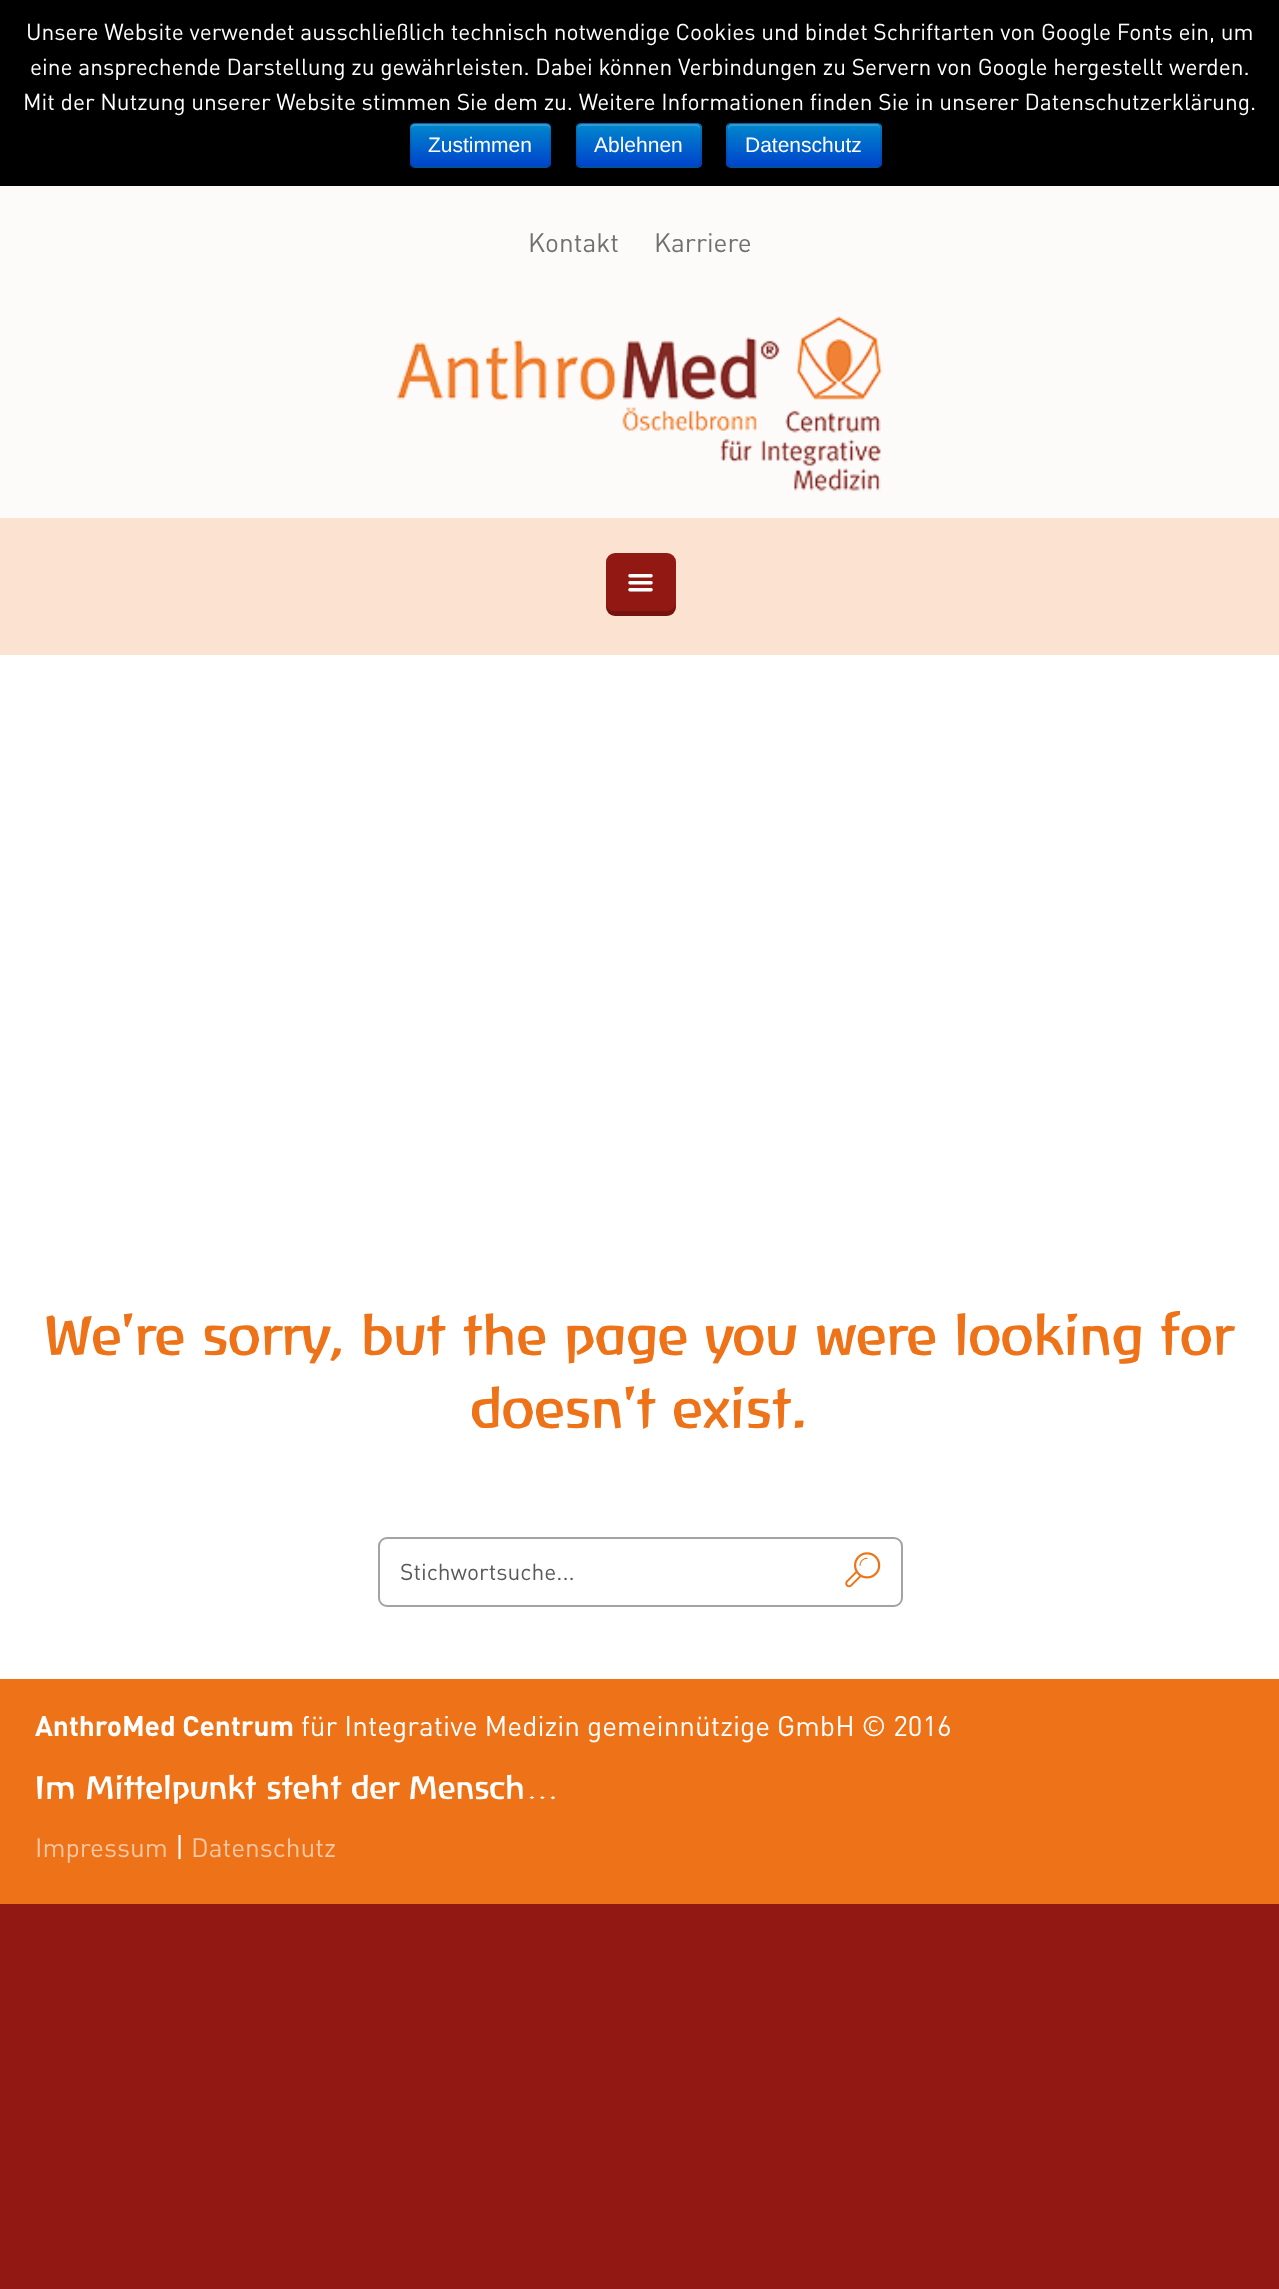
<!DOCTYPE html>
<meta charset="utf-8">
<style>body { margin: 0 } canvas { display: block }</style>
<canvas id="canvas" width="1279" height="2289"></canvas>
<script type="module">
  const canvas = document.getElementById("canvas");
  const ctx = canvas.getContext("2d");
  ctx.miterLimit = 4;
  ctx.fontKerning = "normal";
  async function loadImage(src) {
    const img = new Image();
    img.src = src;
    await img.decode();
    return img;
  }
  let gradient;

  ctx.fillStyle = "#921813";
  ctx.fillRect(0, 0, 1279, 2289);
  ctx.fillStyle = "#000000";
  ctx.fillRect(0, 0, 1279, 186);
  ctx.font = "22.75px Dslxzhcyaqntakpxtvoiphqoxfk";
  ctx.fillStyle = "#ffffff";
  ctx.fillText("Unsere Website verwendet ausschließlich technisch notwendige Cookies und bindet Schriftarten von Google Fonts ein, um", 26, 40);
  ctx.fillText("eine ansprechende Darstellung zu gewährleisten. Dabei können Verbindungen zu Servern von Google hergestellt werden.", 30, 75);
  ctx.fillText("Mit der Nutzung unserer Website stimmen Sie dem zu. Weitere Informationen finden Sie in unserer Datenschutzerklärung.", 23, 110);
  ctx.fillStyle = "#006dcc";
  ctx.beginPath();
  ctx.roundRect(410, 123, 141, 45, 5);
  ctx.fill();
  ctx.save();
  ctx.beginPath();
  ctx.roundRect(410, 123, 141, 45, 5);
  ctx.clip();
  gradient = ctx.createLinearGradient(480, 124, 480, 166);
  gradient.addColorStop(0, "#0088cc");
  gradient.addColorStop(1, "#0044cc");
  ctx.fillStyle = gradient;
  ctx.fillRect(410, 124, 141, 42);
  ctx.restore();
  ctx.fillStyle = "rgba(255, 255, 255, 0.2)";
  ctx.beginPath();
  ctx.moveTo(415, 126);
  ctx.lineTo(546, 126);
  ctx.bezierCurveTo(548, 126, 550, 128, 550, 130);
  ctx.lineTo(550, 128);
  ctx.bezierCurveTo(550, 126, 548, 124, 546, 124);
  ctx.lineTo(415, 124);
  ctx.bezierCurveTo(413, 124, 411, 126, 411, 128);
  ctx.lineTo(411, 130);
  ctx.bezierCurveTo(411, 128, 413, 126, 415, 126);
  ctx.closePath();
  ctx.fill();
  ctx.beginPath();
  ctx.moveTo(549, 166);
  ctx.lineTo(546, 167);
  ctx.lineTo(414.5, 167);
  ctx.lineTo(411.5, 166);
  ctx.strokeStyle = "rgba(0, 0, 0, 0.25)";
  ctx.lineWidth = 1.8;
  ctx.stroke();
  ctx.beginPath();
  ctx.moveTo(411.5, 166);
  ctx.bezierCurveTo(409.5, 163.5, 410.5, 159.5, 410.5, 157);
  ctx.lineTo(410.5, 145);
  ctx.bezierCurveTo(410.5, 118, 406.5, 123.5, 436.5, 123.5);
  ctx.lineTo(546, 123.5);
  ctx.bezierCurveTo(551.5, 123.5, 550.5, 130, 550.5, 133.5);
  ctx.lineTo(550.5, 151);
  ctx.bezierCurveTo(550.5, 154, 552, 163, 549, 166);
  ctx.strokeStyle = "rgba(0, 0, 0, 0.1)";
  ctx.stroke();
  ctx.font = "21px Liberation Sans";
  ctx.fillStyle = "#ffffff";
  ctx.fillText("Zustimmen", 428, 152);
  ctx.fillStyle = "#006dcc";
  ctx.beginPath();
  ctx.roundRect(576, 123, 126, 45, 5);
  ctx.fill();
  ctx.save();
  ctx.beginPath();
  ctx.roundRect(576, 123, 126, 45, 5);
  ctx.clip();
  gradient = ctx.createLinearGradient(639, 124, 639, 166);
  gradient.addColorStop(0, "#0088cc");
  gradient.addColorStop(1, "#0044cc");
  ctx.fillStyle = gradient;
  ctx.fillRect(576, 124, 126, 42);
  ctx.restore();
  ctx.fillStyle = "rgba(255, 255, 255, 0.2)";
  ctx.beginPath();
  ctx.moveTo(581, 126);
  ctx.lineTo(696, 126);
  ctx.bezierCurveTo(698, 126, 700, 128, 700, 130);
  ctx.lineTo(700, 128);
  ctx.bezierCurveTo(700, 126, 698, 124, 696, 124);
  ctx.lineTo(582, 124);
  ctx.bezierCurveTo(580, 124, 578, 126, 578, 128);
  ctx.lineTo(578, 130);
  ctx.bezierCurveTo(578, 128, 579, 126, 581, 126);
  ctx.closePath();
  ctx.fill();
  ctx.beginPath();
  ctx.moveTo(699.5, 166);
  ctx.lineTo(697, 167);
  ctx.lineTo(600, 167);
  ctx.lineTo(581, 167);
  ctx.lineTo(578, 166);
  ctx.strokeStyle = "rgba(0, 0, 0, 0.25)";
  ctx.stroke();
  ctx.beginPath();
  ctx.moveTo(578, 166);
  ctx.bezierCurveTo(575.5, 163.5, 576.5, 159.5, 576.5, 157);
  ctx.lineTo(576.5, 145);
  ctx.bezierCurveTo(576.5, 119, 572.5, 123.5, 600, 123.5);
  ctx.lineTo(696.5, 123.5);
  ctx.bezierCurveTo(702, 123.5, 701, 130, 701, 133.5);
  ctx.lineTo(701, 151);
  ctx.bezierCurveTo(701, 154, 702.5, 163, 699.5, 166);
  ctx.strokeStyle = "rgba(0, 0, 0, 0.1)";
  ctx.stroke();
  ctx.fillStyle = "#ffffff";
  ctx.fillText("Ablehnen", 594, 152);
  ctx.fillStyle = "#006dcc";
  ctx.beginPath();
  ctx.roundRect(726, 123, 156, 45, 5);
  ctx.fill();
  ctx.save();
  ctx.beginPath();
  ctx.roundRect(726, 123, 156, 45, 5);
  ctx.clip();
  gradient = ctx.createLinearGradient(804, 124, 804, 166);
  gradient.addColorStop(0, "#0088cc");
  gradient.addColorStop(1, "#0044cc");
  ctx.fillStyle = gradient;
  ctx.fillRect(726, 124, 156, 42);
  ctx.restore();
  ctx.fillStyle = "rgba(255, 255, 255, 0.2)";
  ctx.beginPath();
  ctx.moveTo(732, 126);
  ctx.lineTo(877, 126);
  ctx.bezierCurveTo(879, 126, 880, 128, 880, 130);
  ctx.lineTo(880, 128);
  ctx.bezierCurveTo(880, 126, 878, 124, 876, 124);
  ctx.lineTo(732, 124);
  ctx.bezierCurveTo(730, 124, 728, 126, 728, 128);
  ctx.lineTo(728, 130);
  ctx.bezierCurveTo(728, 128, 730, 126, 732, 126);
  ctx.closePath();
  ctx.fill();
  ctx.beginPath();
  ctx.moveTo(880, 166);
  ctx.bezierCurveTo(879, 166.5, 878, 167, 877, 167);
  ctx.lineTo(731.5, 167);
  ctx.bezierCurveTo(730.5, 167, 729, 166.5, 728.5, 166);
  ctx.strokeStyle = "rgba(0, 0, 0, 0.25)";
  ctx.stroke();
  ctx.beginPath();
  ctx.moveTo(728.5, 166);
  ctx.bezierCurveTo(725.5, 163, 727, 154, 727, 151);
  ctx.lineTo(727, 133.5);
  ctx.bezierCurveTo(727, 130, 726, 123.5, 731.5, 123.5);
  ctx.lineTo(877, 123.5);
  ctx.bezierCurveTo(882, 123.5, 881, 130, 881, 133.5);
  ctx.lineTo(881, 151);
  ctx.bezierCurveTo(881, 154, 882.5, 163, 880, 166);
  ctx.strokeStyle = "rgba(0, 0, 0, 0.1)";
  ctx.stroke();
  ctx.fillStyle = "#ffffff";
  ctx.fillText("Datenschutz", 745, 152);
  ctx.fillStyle = "#fdfafa";
  ctx.fillRect(0, 186, 1279, 332);
  ctx.font = "26.25px Dslxzhcyaqntakpxtvoiphqoxfk";
  ctx.fillStyle = "#707070";
  ctx.fillText("Kontakt", 528, 252);
  ctx.fillText("Karriere", 654, 252);
  ctx.drawImage(await loadImage("img1.png"), 397, 316, 486, 176);
  ctx.fillStyle = "#fce3d1";
  ctx.fillRect(0, 518, 1279, 137);
  ctx.fillStyle = "#921813";
  ctx.beginPath();
  ctx.roundRect(606, 553, 70, 63, 9);
  ctx.fill();
  ctx.fillStyle = "rgba(0, 0, 0, 0.2)";
  ctx.beginPath();
  ctx.moveTo(606, 602);
  ctx.bezierCurveTo(606, 616, 610, 616, 624, 616);
  ctx.lineTo(658, 616);
  ctx.bezierCurveTo(672, 616, 676, 616, 676, 602);
  ctx.bezierCurveTo(676, 607, 672, 611, 667, 611);
  ctx.lineTo(614, 611);
  ctx.bezierCurveTo(609, 611, 606, 607, 606, 602);
  ctx.closePath();
  ctx.fill();
  ctx.drawImage(await loadImage("img2.png"), 628, 574, 25, 18);
  ctx.fillStyle = "#ffffff";
  ctx.fillRect(0, 655, 1279, 1024);
  ctx.font = "54.25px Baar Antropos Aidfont";
  ctx.fillStyle = "#ed7218";
  ctx.fillText("We're sorry, but the page you were looking for", 45, 1355);
  ctx.fillText("doesn't exist.", 471, 1428);
  ctx.beginPath();
  ctx.roundRect(379, 1538, 523, 68, 8);
  ctx.strokeStyle = "#a3a3a3";
  ctx.lineWidth = 2;
  ctx.stroke();
  ctx.font = "22.75px Dslxzhcyaqntakpxtvoiphqoxfk";
  ctx.fillStyle = "#595959";
  ctx.fillText("Stichwortsuche...", 400, 1580);
  ctx.drawImage(await loadImage("img3.png"), 845, 1552, 36, 36);
  ctx.fillStyle = "#ed7218";
  ctx.fillRect(0, 1679, 1279, 225);
  ctx.font = "bold 28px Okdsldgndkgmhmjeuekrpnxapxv";
  ctx.fillStyle = "#ffffff";
  ctx.fillText("AnthroMed Centrum", 35, 1736);
  ctx.font = "28px Dslxzhcyaqntakpxtvoiphqoxfk";
  ctx.fillText("für Integrative Medizin gemeinnützige GmbH © 2016", 301, 1736);
  ctx.font = "31.5px Baar Antropos Aidfont";
  ctx.fillText("Im Mittelpunkt steht der Mensch…", 35, 1799);
  ctx.font = "26.25px Dslxzhcyaqntakpxtvoiphqoxfk";
  ctx.fillStyle = "#f8c7a3";
  ctx.fillText("Impressum", 35, 1857);
  ctx.font = "28px Dslxzhcyaqntakpxtvoiphqoxfk";
  ctx.fillStyle = "#ffffff";
  ctx.fillText("|", 175, 1857);
  ctx.font = "26.25px Dslxzhcyaqntakpxtvoiphqoxfk";
  ctx.fillStyle = "#f8c7a3";
  ctx.fillText("Datenschutz", 191, 1857);
</script>
